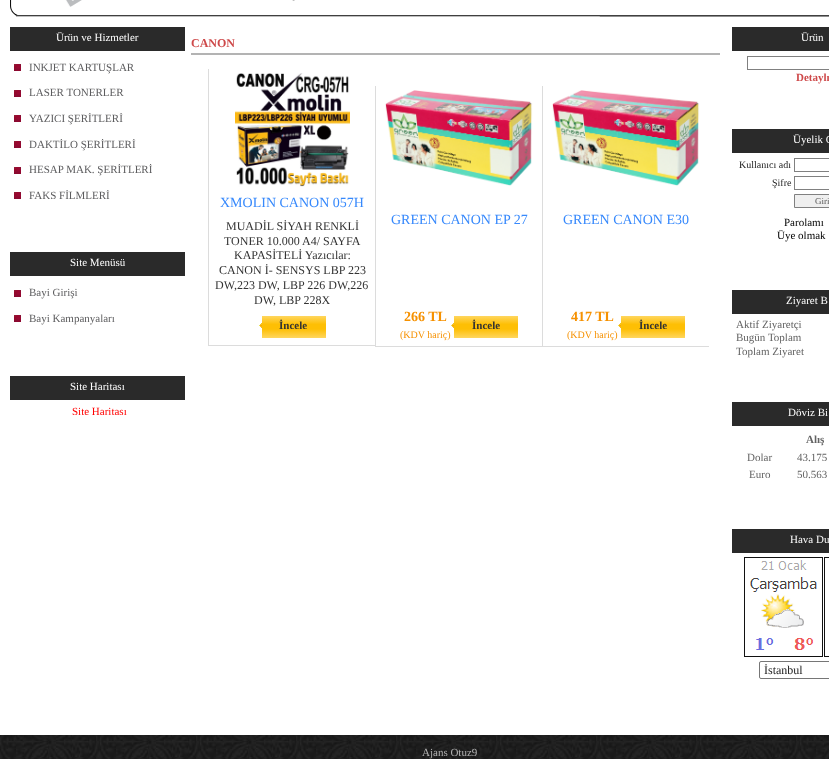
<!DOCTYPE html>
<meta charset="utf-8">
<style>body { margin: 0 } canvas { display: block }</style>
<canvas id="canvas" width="829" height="759"></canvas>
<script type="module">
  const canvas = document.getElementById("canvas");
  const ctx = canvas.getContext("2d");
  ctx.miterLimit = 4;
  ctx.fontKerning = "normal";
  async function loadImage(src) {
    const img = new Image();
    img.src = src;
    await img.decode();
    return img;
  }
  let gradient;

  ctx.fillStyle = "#ffffff";
  ctx.fillRect(0, 0, 829, 759);
  ctx.drawImage(await loadImage("img1.png"), 0, 735, 829, 24);
  ctx.drawImage(await loadImage("img2.png"), 10, 0, 819, 17);
  ctx.fillStyle = "#2a2a2a";
  ctx.fillRect(10, 27, 175, 24);
  ctx.font = "11px Liberation Serif";
  ctx.fillStyle = "#ffffff";
  ctx.fillText("Ürün ve Hizmetler", 56, 41);
  ctx.drawImage(await loadImage("img3.png"), 14, 64, 7, 7);
  ctx.fillStyle = "#5c5c5e";
  ctx.fillText("INKJET KARTUŞLAR", 29, 71);
  ctx.drawImage(await loadImage("img3.png"), 14, 90, 7, 7);
  ctx.fillText("LASER TONERLER", 29, 96);
  ctx.drawImage(await loadImage("img3.png"), 14, 115, 7, 7);
  ctx.fillText("YAZICI ŞERİTLERİ", 29, 122);
  ctx.drawImage(await loadImage("img3.png"), 14, 141, 7, 7);
  ctx.fillText("DAKTİLO ŞERİTLERİ", 29, 148);
  ctx.drawImage(await loadImage("img3.png"), 14, 167, 7, 7);
  ctx.fillText("HESAP MAK. ŞERİTLERİ", 29, 173);
  ctx.drawImage(await loadImage("img3.png"), 14, 192, 7, 7);
  ctx.fillText("FAKS FİLMLERİ", 29, 199);
  ctx.fillStyle = "#2a2a2a";
  ctx.fillRect(10, 252, 175, 24);
  ctx.fillStyle = "#ffffff";
  ctx.fillText("Site Menüsü", 70, 266);
  ctx.drawImage(await loadImage("img3.png"), 14, 290, 7, 7);
  ctx.fillStyle = "#5c5c5e";
  ctx.fillText("Bayi Girişi", 29, 296);
  ctx.drawImage(await loadImage("img3.png"), 14, 315, 7, 7);
  ctx.fillText("Bayi Kampanyaları", 29, 322);
  ctx.fillStyle = "#2a2a2a";
  ctx.fillRect(10, 376, 175, 24);
  ctx.fillStyle = "#ffffff";
  ctx.fillText("Site Haritası", 70, 390);
  ctx.fillStyle = "#ff0000";
  ctx.fillText("Site Haritası", 72, 415);
  ctx.fillStyle = "#b3b3b3";
  ctx.fillRect(191, 53, 529, 2);
  ctx.font = "bold 12px Liberation Serif";
  ctx.fillStyle = "#ce494a";
  ctx.fillText("CANON", 191, 47);
  ctx.fillStyle = "#dcdcdc";
  ctx.fillRect(208, 345, 167, 1);
  ctx.fillRect(208, 69, 1, 277);
  ctx.drawImage(await loadImage("img4.png"), 235, 73, 115, 114);
  ctx.font = "14px Liberation Serif";
  ctx.fillStyle = "#3789fc";
  ctx.fillText("XMOLIN CANON 057H", 220, 207);
  ctx.font = "12px Liberation Serif";
  ctx.fillStyle = "#333333";
  ctx.fillText("MUADİL SİYAH RENKLİ", 226, 230);
  ctx.fillText("TONER 10.000 A4/ SAYFA", 224, 245);
  ctx.fillText("KAPASİTELİ Yazıcılar:", 234, 259);
  ctx.fillText("CANON İ- SENSYS LBP 223", 219, 274);
  ctx.fillText("DW,223 DW, LBP 226 DW,226", 215, 289);
  ctx.fillText("DW, LBP 228X", 254, 304);
  ctx.drawImage(await loadImage("img5.png"), 259, 323, 3, 5);
  gradient = ctx.createLinearGradient(294, 316, 294, 338);
  gradient.addColorStop(0, "#ffd65e");
  gradient.addColorStop(0.38, "#febf04");
  gradient.addColorStop(0.59, "#febf04");
  gradient.addColorStop(1, "#ffd65e");
  ctx.fillStyle = gradient;
  ctx.fillRect(262, 316, 64, 22);
  ctx.font = "bold 11px Liberation Serif";
  ctx.fillStyle = "#333333";
  ctx.fillText("İncele", 279, 329);
  ctx.fillStyle = "#dcdcdc";
  ctx.fillRect(375, 346, 334, 1);
  ctx.fillRect(375, 86, 1, 261);
  ctx.drawImage(await loadImage("img6.png"), 385, 90, 148, 96);
  ctx.font = "14px Liberation Serif";
  ctx.fillStyle = "#3789fc";
  ctx.fillText("GREEN CANON EP 27", 391, 224);
  ctx.font = "bold 14px Liberation Serif";
  ctx.fillStyle = "#f69100";
  ctx.fillText("266 TL", 404, 321);
  ctx.font = "10px Liberation Serif";
  ctx.fillText("(KDV hariç)", 400, 338);
  ctx.drawImage(await loadImage("img5.png"), 451, 323, 3, 5);
  gradient = ctx.createLinearGradient(486, 316, 486, 338);
  gradient.addColorStop(0, "#ffd65e");
  gradient.addColorStop(0.38, "#febf04");
  gradient.addColorStop(0.59, "#febf04");
  gradient.addColorStop(1, "#ffd65e");
  ctx.fillStyle = gradient;
  ctx.fillRect(454, 316, 64, 22);
  ctx.font = "bold 11px Liberation Serif";
  ctx.fillStyle = "#333333";
  ctx.fillText("İncele", 472, 329);
  ctx.fillStyle = "#dcdcdc";
  ctx.fillRect(542, 86, 1, 261);
  ctx.drawImage(await loadImage("img6.png"), 552, 90, 148, 96);
  ctx.font = "14px Liberation Serif";
  ctx.fillStyle = "#3789fc";
  ctx.fillText("GREEN CANON E30", 563, 224);
  ctx.font = "bold 14px Liberation Serif";
  ctx.fillStyle = "#f69100";
  ctx.fillText("417 TL", 571, 321);
  ctx.font = "10px Liberation Serif";
  ctx.fillText("(KDV hariç)", 567, 338);
  ctx.drawImage(await loadImage("img5.png"), 618, 323, 3, 5);
  gradient = ctx.createLinearGradient(653, 316, 653, 338);
  gradient.addColorStop(0, "#ffd65e");
  gradient.addColorStop(0.38, "#febf04");
  gradient.addColorStop(0.59, "#febf04");
  gradient.addColorStop(1, "#ffd65e");
  ctx.fillStyle = gradient;
  ctx.fillRect(621, 316, 64, 22);
  ctx.font = "bold 11px Liberation Serif";
  ctx.fillStyle = "#333333";
  ctx.fillText("İncele", 639, 329);
  ctx.fillStyle = "#2a2a2a";
  ctx.fillRect(732, 27, 97, 24);
  ctx.font = "11px Liberation Serif";
  ctx.fillStyle = "#ffffff";
  ctx.fillText("Ürün", 801, 41);
  ctx.strokeStyle = "#808080";
  ctx.strokeRect(747.5, 56.5, 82, 13);
  ctx.font = "bold 11px Liberation Serif";
  ctx.fillStyle = "#ce494a";
  ctx.fillText("Detaylı", 796, 81);
  ctx.fillStyle = "#2a2a2a";
  ctx.fillRect(732, 129, 97, 24);
  ctx.font = "11px Liberation Serif";
  ctx.fillStyle = "#ffffff";
  ctx.fillText("Üyelik G", 793, 143);
  ctx.font = "10px Liberation Serif";
  ctx.fillStyle = "#222222";
  ctx.fillText("Kullanıcı adı", 739, 168);
  ctx.strokeRect(794.5, 158.5, 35, 13);
  ctx.fillText("Şifre", 772, 186);
  ctx.strokeRect(794.5, 176.5, 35, 13);
  ctx.fillStyle = "#efefef";
  ctx.beginPath();
  ctx.rect(794.5, 194.5, 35, 13);
  ctx.fill();
  ctx.stroke();
  ctx.font = "9px Liberation Serif";
  ctx.fillStyle = "#585858";
  ctx.fillText("Giri", 815, 204);
  ctx.font = "11px Liberation Serif";
  ctx.fillStyle = "#000000";
  ctx.fillText("Parolamı", 784, 226);
  ctx.fillText("Üye olmak", 777, 239);
  ctx.fillStyle = "#2a2a2a";
  ctx.fillRect(732, 290, 97, 24);
  ctx.fillStyle = "#ffffff";
  ctx.fillText("Ziyaret B", 786, 304);
  ctx.fillStyle = "#636363";
  ctx.fillText("Aktif Ziyaretçi", 736, 328);
  ctx.fillText("Bugün Toplam", 736, 341);
  ctx.fillText("Toplam Ziyaret", 736, 355);
  ctx.fillStyle = "#2a2a2a";
  ctx.fillRect(732, 402, 97, 24);
  ctx.fillStyle = "#ffffff";
  ctx.fillText("Döviz Bi", 788, 416);
  ctx.font = "bold 11px Liberation Serif";
  ctx.fillStyle = "#636363";
  ctx.fillText("Alış", 806, 443);
  ctx.font = "11px Liberation Serif";
  ctx.fillText("Dolar", 747, 461);
  ctx.fillText("43.175", 797, 461);
  ctx.fillText("Euro", 749, 478);
  ctx.fillText("50.563", 797, 478);
  ctx.fillStyle = "#2a2a2a";
  ctx.fillRect(732, 529, 97, 24);
  ctx.fillStyle = "#ffffff";
  ctx.fillText("Hava Du", 790, 543);
  ctx.drawImage(await loadImage("img7.png"), 744, 557, 85, 100);
  ctx.beginPath();
  ctx.roundRect(759.5, 661.5, 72, 17, 1.5);
  ctx.strokeStyle = "#767676";
  ctx.stroke();
  ctx.font = "12px Liberation Serif";
  ctx.fillStyle = "#222222";
  ctx.fillText("İstanbul", 764, 674);
  ctx.font = "11px Liberation Serif";
  ctx.fillStyle = "#b2b2b2";
  ctx.fillText("Ajans Otuz9", 422, 756);
</script>
